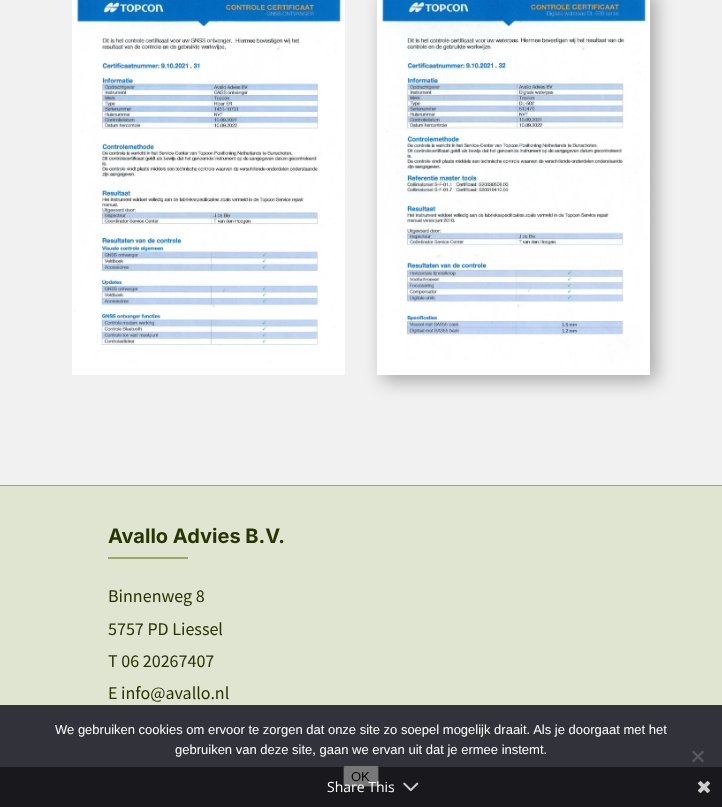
<!DOCTYPE html>
<meta charset="utf-8">
<style>body { margin: 0 } canvas { display: block }</style>
<canvas id="canvas" width="722" height="807"></canvas>
<script type="module">
  const canvas = document.getElementById("canvas");
  const ctx = canvas.getContext("2d");
  ctx.miterLimit = 4;
  ctx.fontKerning = "normal";
  async function loadImage(src) {
    const img = new Image();
    img.src = src;
    await img.decode();
    return img;
  }

  ctx.fillStyle = "#f1f1f1";
  ctx.fillRect(0, 0, 722, 807);
  ctx.drawImage(await loadImage("img1.png"), 72, 0, 273, 375);
  ctx.fillStyle = "rgba(0, 0, 0, 0.3)";
  ctx.filter = "blur(9px)";
  ctx.beginPath();
  ctx.rect(383, -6, 273, 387);
  ctx.fill();
  ctx.filter = "none";
  ctx.drawImage(await loadImage("img2.png"), 377, 0, 273, 375);
  ctx.fillStyle = "#e0e5d1";
  ctx.fillRect(0, 486, 722, 219);
  ctx.fillStyle = "#98a968";
  ctx.fillRect(0, 485, 722, 1);
  ctx.font = "bold 20px Inter";
  ctx.fillStyle = "#273503";
  ctx.fillText("Avallo Advies B.V.", 108, 543);
  ctx.fillStyle = "#98a968";
  ctx.fillRect(108, 557, 80, 2);
  ctx.font = "18px Source Sans Pro";
  ctx.fillStyle = "#273503";
  ctx.fillText("Binnenweg 8", 108, 602);
  ctx.fillText("5757 PD Liessel", 108, 635);
  ctx.fillText("T 06 20267407", 108, 667);
  ctx.fillText("E info@avallo.nl", 108, 699);
  ctx.fillStyle = "#32323a";
  ctx.fillRect(0, 705, 722, 102);
  ctx.font = "13px Liberation Sans";
  ctx.fillStyle = "#ffffff";
  ctx.fillText("We gebruiken cookies om ervoor te zorgen dat onze site zo soepel mogelijk draait. Als je doorgaat met het", 55, 734);
  ctx.fillText("gebruiken van deze site, gaan we ervan uit dat je ermee instemt.", 175, 754);
  ctx.fillStyle = "#59595d";
  ctx.beginPath();
  ctx.moveTo(702.5, 750.5);
  ctx.lineTo(704, 752);
  ctx.lineTo(693.5, 762.5);
  ctx.lineTo(692, 761);
  ctx.closePath();
  ctx.fill();
  ctx.beginPath();
  ctx.moveTo(692, 752);
  ctx.lineTo(693.5, 750.5);
  ctx.lineTo(704, 761);
  ctx.lineTo(702.5, 762.5);
  ctx.closePath();
  ctx.fill();
  ctx.fillStyle = "#efefef";
  ctx.beginPath();
  ctx.roundRect(343.5, 766.5, 35, 20, 1.5);
  ctx.fill();
  ctx.strokeStyle = "#767676";
  ctx.stroke();
  ctx.fillStyle = "#000000";
  ctx.fillText("OK", 351, 781);
  ctx.fillStyle = "rgba(0, 0, 0, 0.5)";
  ctx.fillRect(0, 767, 722, 40);
  ctx.font = "14px Open Sans";
  ctx.fillStyle = "#ffffff";
  ctx.fillText("Share This", 327, 792);
  ctx.drawImage(await loadImage("img3.png"), 403, 782, 16, 10);
  ctx.drawImage(await loadImage("img4.png"), 698, 781, 12, 12);
</script>
